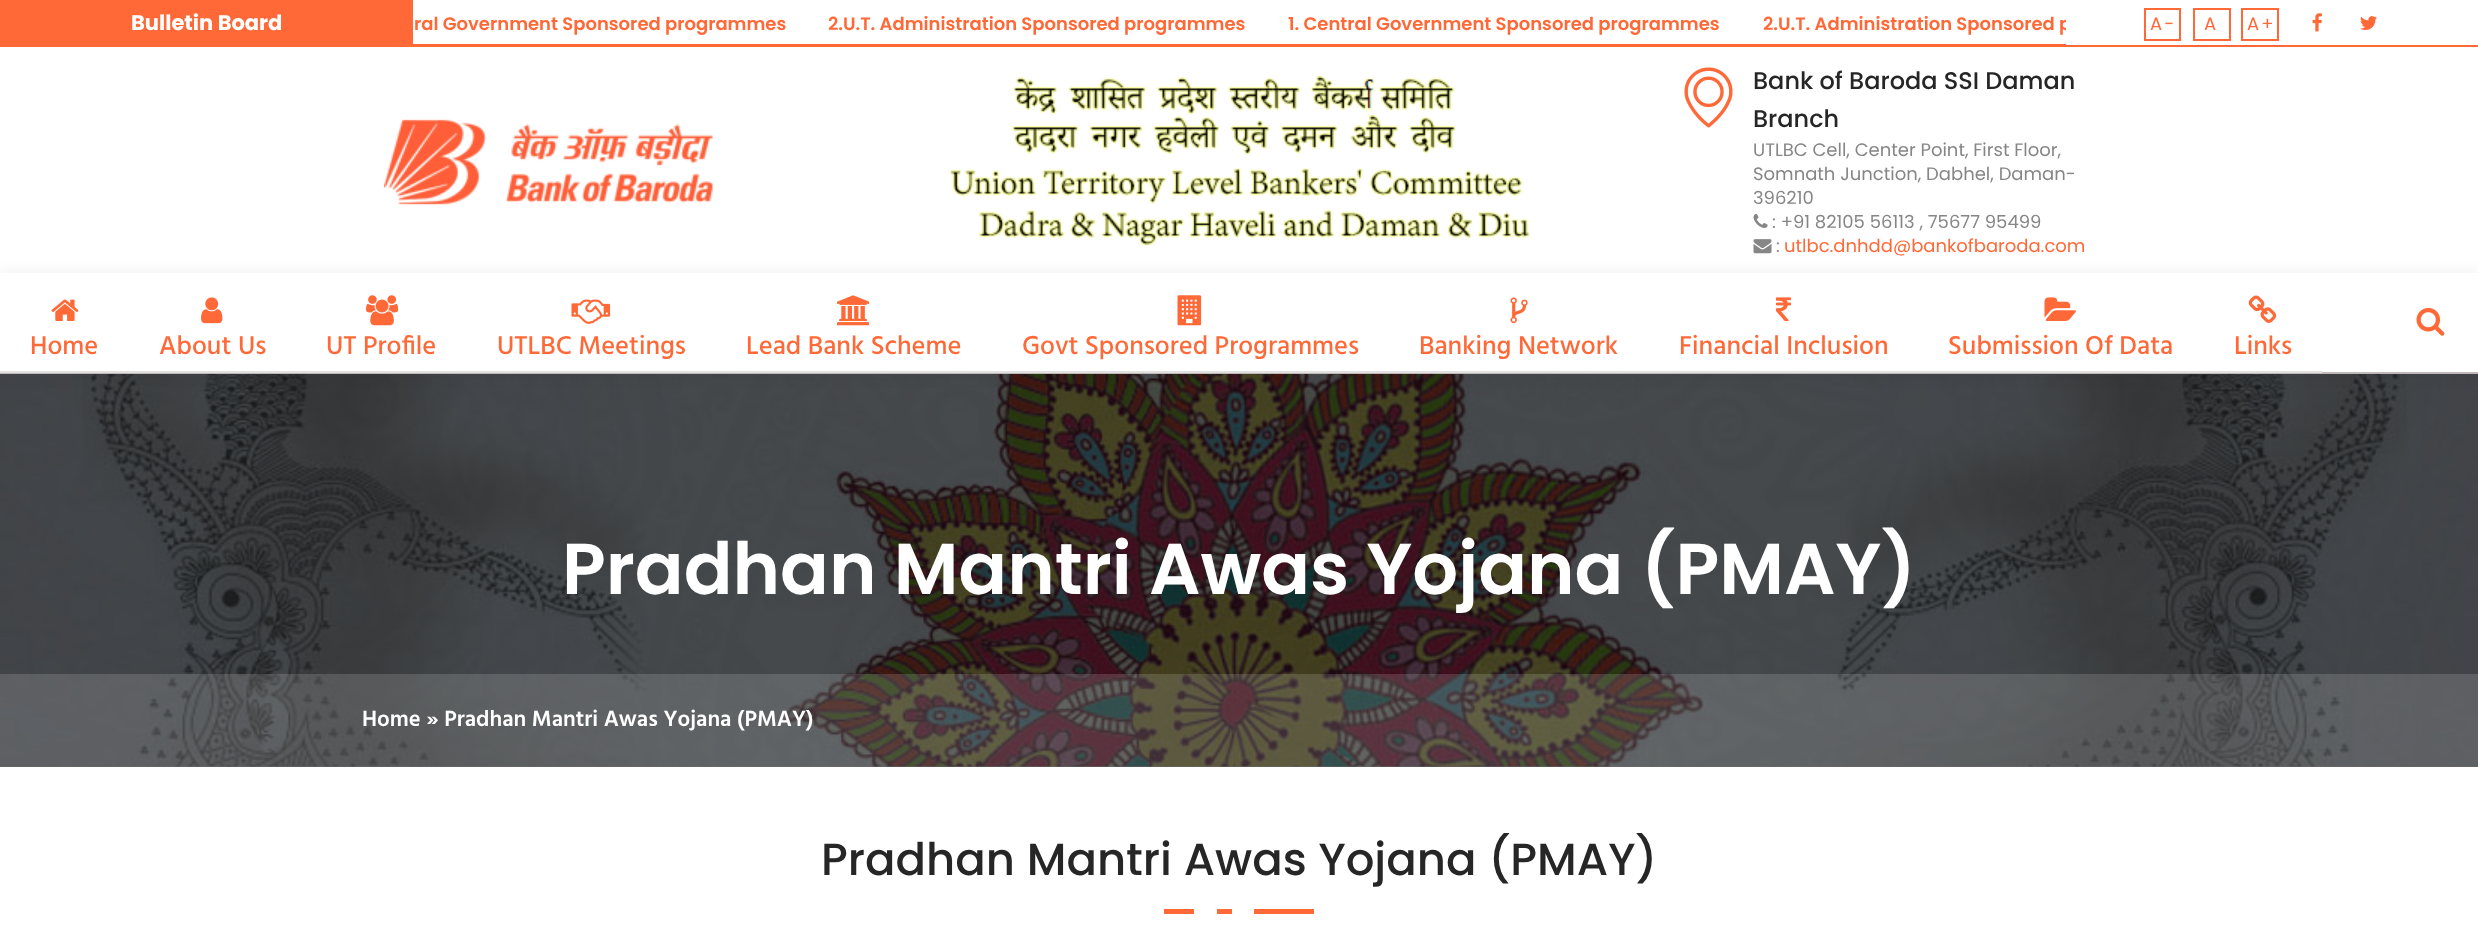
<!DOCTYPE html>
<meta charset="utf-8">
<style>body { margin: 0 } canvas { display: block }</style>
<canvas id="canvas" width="2478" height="931"></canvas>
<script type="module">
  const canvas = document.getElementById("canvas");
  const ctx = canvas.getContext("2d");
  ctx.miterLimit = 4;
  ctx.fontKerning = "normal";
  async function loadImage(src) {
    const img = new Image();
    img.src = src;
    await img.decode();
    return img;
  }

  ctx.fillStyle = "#ffffff";
  ctx.fillRect(0, 0, 2478, 931);
  ctx.fillStyle = "#515151";
  ctx.fillRect(0, 766, 2478, 1);
  ctx.fillStyle = "#ff6937";
  ctx.fillRect(0, 45, 2478, 2);
  ctx.fillRect(0, 0, 413, 45);
  ctx.font = "bold 21px Poppins";
  ctx.fillStyle = "#ffffff";
  ctx.fillText("Bulletin Board", 131, 30);
  ctx.fillStyle = "#ff6937";
  ctx.fillRect(413, 44, 1653, 1);
  ctx.font = "600 18px Poppins";
  ctx.fillText("ral Government Sponsored programmes", 414, 30);
  ctx.fillText("2.U.T. Administration Sponsored programmes", 828, 30);
  ctx.fillText("1. Central Government Sponsored programmes", 1288, 30);
  ctx.save();
  ctx.beginPath();
  ctx.rect(413, 0, 1653, 75);
  ctx.clip();
  ctx.fillText("2.U.T. Administration Sponsored p", 1763, 30);
  ctx.restore();
  ctx.strokeStyle = "#ff6937";
  ctx.lineWidth = 2;
  ctx.strokeRect(2145, 9, 35, 31);
  ctx.letterSpacing = "2px";
  ctx.font = "18px Poppins";
  ctx.fillText("A-", 2150, 30);
  ctx.strokeRect(2194, 9, 36, 31);
  ctx.fillText("A", 2204, 30);
  ctx.strokeRect(2242, 9, 36, 31);
  ctx.fillText("A+", 2247, 30);
  ctx.drawImage(await loadImage("img1.png"), 2312, 13, 10, 19);
  ctx.drawImage(await loadImage("img2.png"), 2360, 16, 17, 14);
  ctx.drawImage(await loadImage("img3.png"), 384, 119, 329, 86);
  ctx.drawImage(await loadImage("img4.png"), 949, 75, 581, 172);
  ctx.drawImage(await loadImage("img5.png"), 1684, 67, 49, 61);
  ctx.letterSpacing = "0px";
  ctx.font = "500 24px Poppins";
  ctx.fillStyle = "#262626";
  ctx.fillText("Bank of Baroda SSI Daman", 1753, 89);
  ctx.fillText("Branch", 1753, 127);
  ctx.font = "18px Poppins";
  ctx.fillStyle = "#868686";
  ctx.fillText("UTLBC Cell, Center Point, First Floor,", 1753, 156);
  ctx.fillText("Somnath Junction, Dabhel, Daman-", 1753, 180);
  ctx.fillText("396210", 1753, 204);
  ctx.drawImage(await loadImage("img6.png"), 1753, 213, 15, 15);
  ctx.fillText(": +91 82105 56113 , 75677 95499", 1772, 228);
  ctx.drawImage(await loadImage("img7.png"), 1753, 239, 19, 15);
  ctx.fillText(":", 1776, 252);
  ctx.fillStyle = "#ff6937";
  ctx.fillText("utlbc.dnhdd@bankofbaroda.com", 1784, 252);
  ctx.drawImage(await loadImage("img19.png"), 0, 374, 2478, 393);
  ctx.fillStyle = "rgba(5, 5, 5, 0.06)";
  ctx.filter = "blur(7.5px)";
  ctx.beginPath();
  ctx.rect(-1, 272, 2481, 103);
  ctx.fill();
  ctx.filter = "none";
  ctx.fillStyle = "#ffffff";
  ctx.fillRect(0, 273, 2478, 99);
  ctx.fillStyle = "#beb8b8";
  ctx.fillRect(0, 372, 2478, 2);
  ctx.drawImage(await loadImage("img8.png"), 2416, 307, 29, 29);
  ctx.fillStyle = "#e3e0e0";
  ctx.fillRect(0, 371, 2322, 2);
  ctx.drawImage(await loadImage("img9.png"), 51, 299, 28, 22);
  ctx.font = "500 26.5px Hind";
  ctx.fillStyle = "#ff6937";
  ctx.fillText("Home", 30, 354);
  ctx.drawImage(await loadImage("img10.png"), 201, 297, 22, 27);
  ctx.fillText("About Us", 159, 354);
  ctx.drawImage(await loadImage("img11.png"), 366, 295, 33, 31);
  ctx.fillText("UT Profile", 326, 354);
  ctx.drawImage(await loadImage("img12.png"), 571, 299, 40, 25);
  ctx.fillText("UTLBC Meetings", 497, 354);
  ctx.drawImage(await loadImage("img13.png"), 837, 295, 33, 31);
  ctx.fillText("Lead Bank Scheme", 746, 354);
  ctx.drawImage(await loadImage("img14.png"), 1177, 295, 25, 31);
  ctx.fillText("Govt Sponsored Programmes", 1022, 354);
  ctx.drawImage(await loadImage("img15.png"), 1510, 297, 18, 27);
  ctx.fillText("Banking Network", 1419, 354);
  ctx.drawImage(await loadImage("img16.png"), 1776, 297, 16, 24);
  ctx.fillText("Financial Inclusion", 1679, 354);
  ctx.drawImage(await loadImage("img17.png"), 2044, 297, 32, 24);
  ctx.fillText("Submission Of Data", 1948, 354);
  ctx.drawImage(await loadImage("img18.png"), 2248, 295, 29, 28);
  ctx.fillText("Links", 2234, 354);
  ctx.font = "600 72px Poppins";
  ctx.fillStyle = "#ffffff";
  ctx.fillText("Pradhan Mantri Awas Yojana (PMAY)", 562, 594);
  ctx.fillStyle = "rgba(255, 255, 255, 0.15)";
  ctx.fillRect(0, 674, 2478, 93);
  ctx.font = "600 22.5px Hind";
  ctx.fillStyle = "#ffffff";
  ctx.fillText("Home » Pradhan Mantri Awas Yojana (PMAY)", 362, 726);
  ctx.font = "500 45px Poppins";
  ctx.fillStyle = "#262626";
  ctx.fillText("Pradhan Mantri Awas Yojana (PMAY)", 821, 875);
  ctx.fillStyle = "#ff6937";
  ctx.fillRect(1164, 909, 150, 5);
  ctx.fillStyle = "#ffffff";
  ctx.fillRect(1232, 909, 22, 5);
  ctx.fillRect(1194, 909, 23, 5);
</script>
